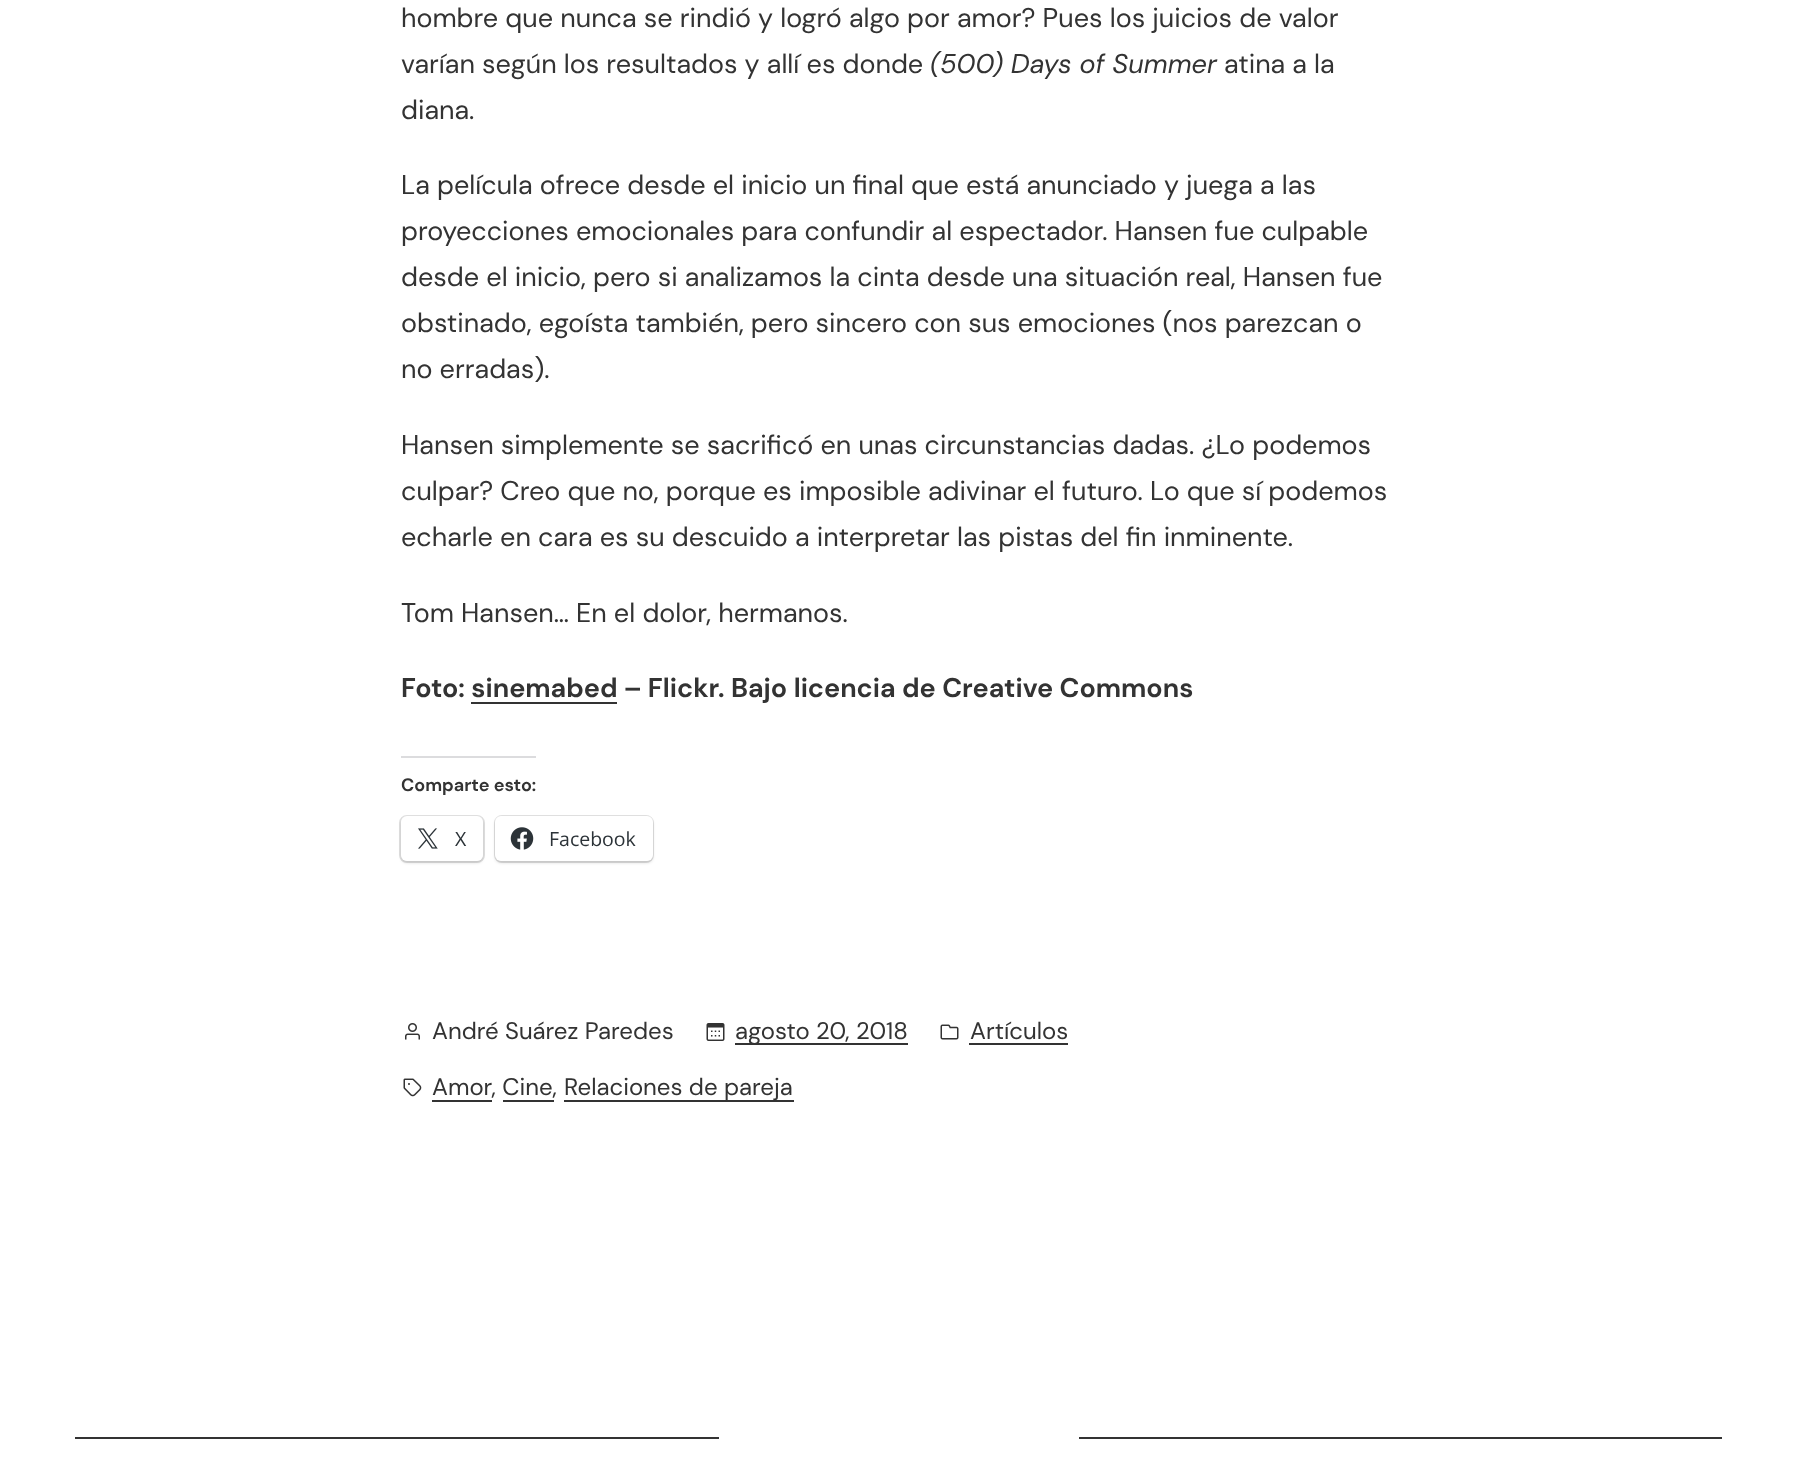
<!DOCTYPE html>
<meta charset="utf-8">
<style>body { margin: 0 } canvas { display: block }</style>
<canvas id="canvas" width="1796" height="1470"></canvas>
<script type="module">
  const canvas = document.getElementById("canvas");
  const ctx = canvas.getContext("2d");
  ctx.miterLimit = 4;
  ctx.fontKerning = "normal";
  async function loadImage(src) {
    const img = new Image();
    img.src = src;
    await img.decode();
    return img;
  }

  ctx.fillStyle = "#ffffff";
  ctx.fillRect(0, 0, 1796, 1470);
  ctx.font = "27px DM Sans";
  ctx.fillStyle = "#333333";
  ctx.fillText("hombre que nunca se rindió y logró algo por amor? Pues los juicios de valor", 401, 27);
  ctx.fillText("varían según los resultados y allí es donde", 401, 73);
  ctx.font = "italic 27px DM Sans";
  ctx.fillText("(500) Days of Summer", 930, 73);
  ctx.font = "27px DM Sans";
  ctx.fillText("atina a la", 1224, 73);
  ctx.fillText("diana.", 401, 119);
  ctx.fillText("La película ofrece desde el inicio un final que está anunciado y juega a las", 401, 194);
  ctx.fillText("proyecciones emocionales para confundir al espectador. Hansen fue culpable", 401, 240);
  ctx.fillText("desde el inicio, pero si analizamos la cinta desde una situación real, Hansen fue", 401, 286);
  ctx.fillText("obstinado, egoísta también, pero sincero con sus emociones (nos parezcan o", 401, 332);
  ctx.fillText("no erradas).", 401, 378);
  ctx.fillText("Hansen simplemente se sacrificó en unas circunstancias dadas. ¿Lo podemos", 401, 454);
  ctx.fillText("culpar? Creo que no, porque es imposible adivinar el futuro. Lo que sí podemos", 401, 500);
  ctx.fillText("echarle en cara es su descuido a interpretar las pistas del fin inminente.", 401, 546);
  ctx.fillText("Tom Hansen… En el dolor, hermanos.", 401, 622);
  ctx.font = "bold 27px DM Sans";
  ctx.fillText("Foto: sinemabed – Flickr. Bajo licencia de Creative Commons", 401, 697);
  ctx.fillRect(471, 702, 146, 2);
  ctx.fillStyle = "#dcdcde";
  ctx.fillRect(401, 756, 135, 2);
  ctx.font = "bold 18px DM Sans";
  ctx.fillStyle = "#333333";
  ctx.fillText("Comparte esto:", 401, 791);
  ctx.beginPath();
  ctx.roundRect(400, 816, 84, 46, 7);
  ctx.strokeStyle = "#e0e0e0";
  ctx.lineWidth = 2;
  ctx.stroke();
  ctx.fillStyle = "rgba(0, 0, 0, 0.12)";
  ctx.filter = "blur(1.5px)";
  ctx.beginPath();
  ctx.roundRect(401, 818, 82, 45, 6);
  ctx.fill();
  ctx.filter = "none";
  ctx.fillStyle = "#ffffff";
  ctx.beginPath();
  ctx.roundRect(401, 816, 82, 45, 6);
  ctx.fill();
  ctx.drawImage(await loadImage("img1.png"), 418, 828, 20, 21);
  ctx.font = "19.5px Open Sans";
  ctx.fillStyle = "#2c3338";
  ctx.fillText("X", 455, 846);
  ctx.beginPath();
  ctx.roundRect(495, 816, 158, 46, 7);
  ctx.stroke();
  ctx.fillStyle = "rgba(0, 0, 0, 0.12)";
  ctx.filter = "blur(1.5px)";
  ctx.beginPath();
  ctx.roundRect(495, 818, 158, 45, 6);
  ctx.fill();
  ctx.filter = "none";
  ctx.fillStyle = "#ffffff";
  ctx.beginPath();
  ctx.roundRect(495, 816, 158, 45, 6);
  ctx.fill();
  ctx.drawImage(await loadImage("img2.png"), 510, 827, 24, 23);
  ctx.fillStyle = "#2c3338";
  ctx.fillText("Facebook", 549, 846);
  ctx.drawImage(await loadImage("img3.png"), 405, 1023, 15, 17);
  ctx.font = "24px DM Sans";
  ctx.fillStyle = "#333333";
  ctx.fillText("André Suárez Paredes", 432, 1039);
  ctx.drawImage(await loadImage("img4.png"), 706, 1023, 19, 18);
  ctx.fillRect(735, 1043, 173, 2);
  ctx.fillText("agosto 20, 2018", 735, 1039);
  ctx.drawImage(await loadImage("img5.png"), 940, 1024, 19, 16);
  ctx.fillText("Artículos", 970, 1039);
  ctx.fillRect(969, 1043, 99, 2);
  ctx.drawImage(await loadImage("img6.png"), 403, 1078, 19, 19);
  ctx.fillText("Amor, Cine,", 432, 1095);
  ctx.fillRect(432, 1100, 60, 2);
  ctx.fillRect(564, 1100, 230, 2);
  ctx.fillText("Relaciones de pareja", 564, 1095);
  ctx.fillRect(503, 1100, 51, 2);
  ctx.fillRect(75, 1437, 644, 2);
  ctx.fillRect(1079, 1437, 643, 2);
</script>
